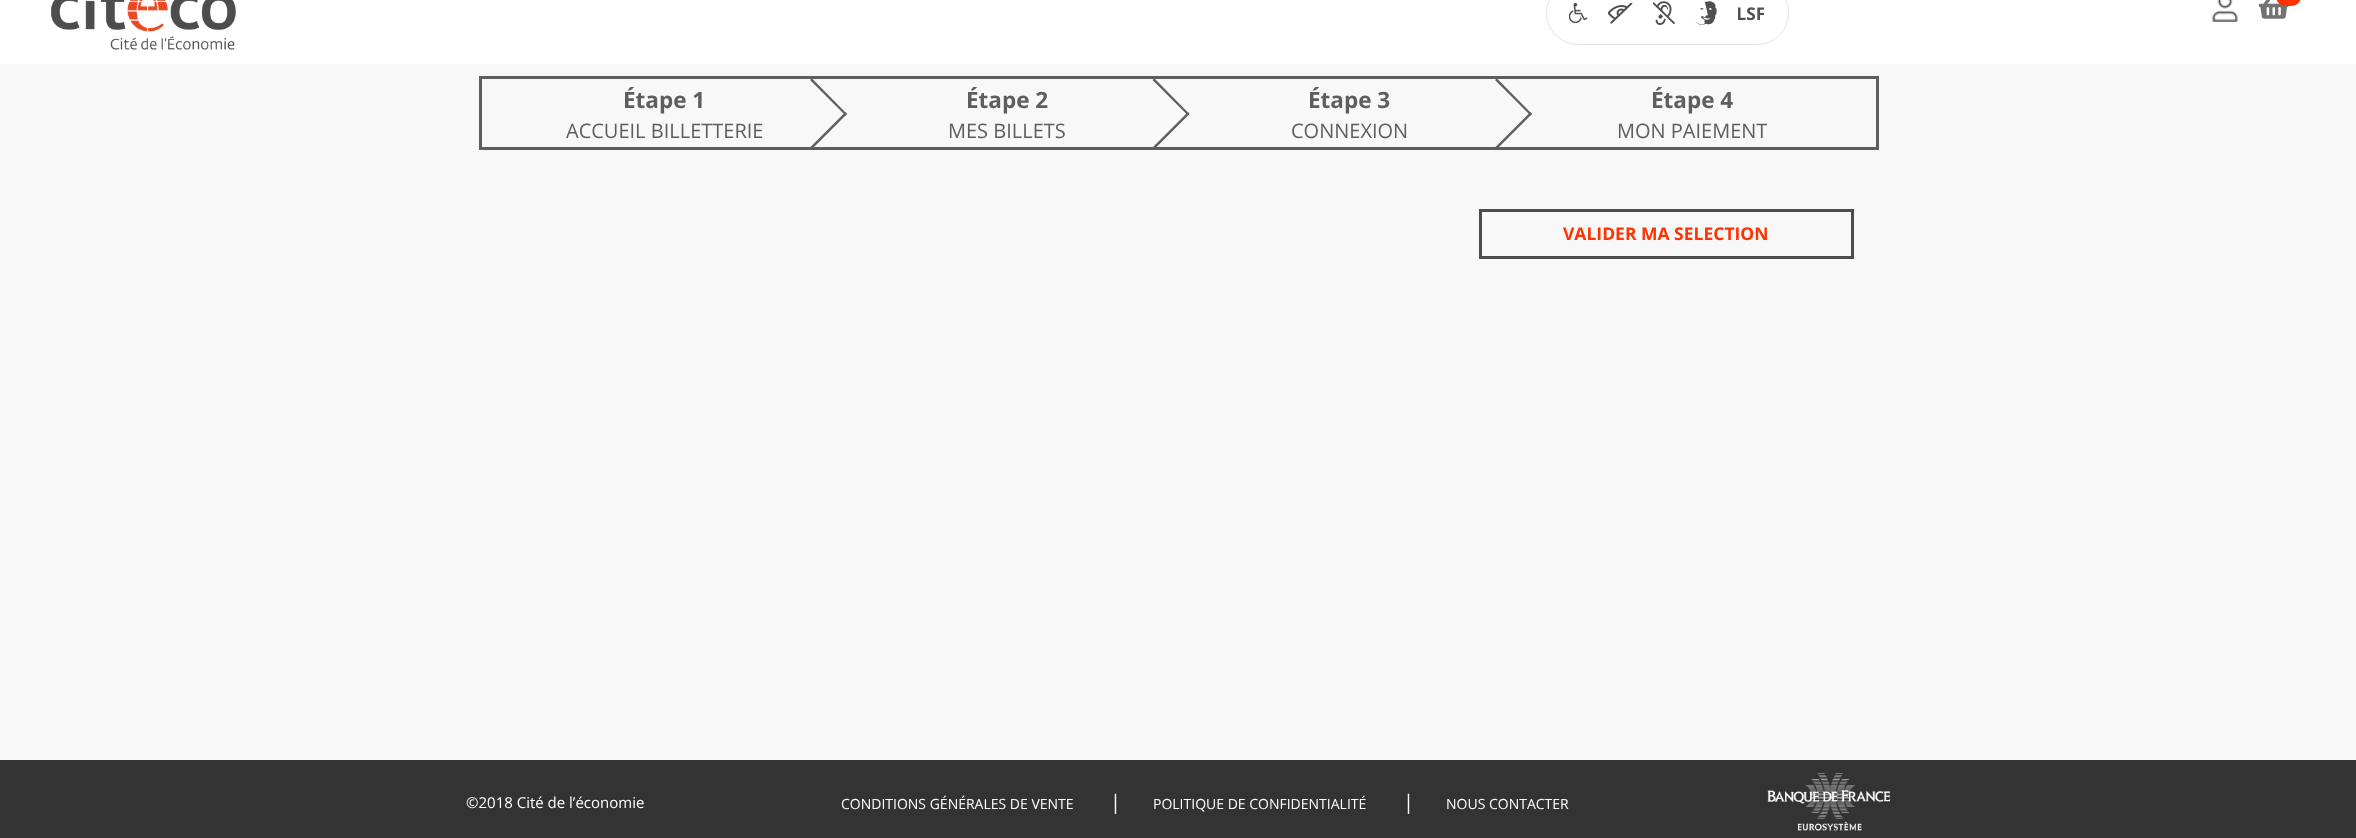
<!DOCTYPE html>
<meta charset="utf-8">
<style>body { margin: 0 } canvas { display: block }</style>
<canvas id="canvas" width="2356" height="838"></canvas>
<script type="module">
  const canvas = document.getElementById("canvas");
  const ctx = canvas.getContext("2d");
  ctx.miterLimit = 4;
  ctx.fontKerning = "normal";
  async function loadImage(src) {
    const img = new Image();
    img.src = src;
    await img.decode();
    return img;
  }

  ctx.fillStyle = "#f8f8f8";
  ctx.fillRect(0, 0, 2356, 838);
  ctx.fillStyle = "#ffffff";
  ctx.fillRect(0, 0, 2356, 64);
  ctx.drawImage(await loadImage("img1.png"), 51, 0, 185, 50);
  ctx.beginPath();
  ctx.roundRect(1546.5, -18.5, 242, 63, 31.5);
  ctx.strokeStyle = "#e2e2e2";
  ctx.stroke();
  ctx.drawImage(await loadImage("img2.png"), 1569, 3, 19, 21);
  ctx.drawImage(await loadImage("img3.png"), 1608, 3, 25, 21);
  ctx.drawImage(await loadImage("img4.png"), 1653, 1, 22, 24);
  ctx.drawImage(await loadImage("img5.png"), 1695, 1, 22, 24);
  ctx.drawImage(await loadImage("img6.png"), 1738, 7, 26, 14);
  ctx.drawImage(await loadImage("img7.png"), 2212, 0, 26, 22);
  ctx.drawImage(await loadImage("img8.png"), 2259, 0, 30, 19);
  ctx.fillStyle = "#ff3300";
  ctx.beginPath();
  ctx.roundRect(2276, -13, 25, 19, 12.5);
  ctx.fill();
  ctx.strokeStyle = "#5f5e5f";
  ctx.lineWidth = 3;
  ctx.strokeRect(480.5, 77.5, 1397, 71);
  ctx.font = "bold 22.5px Open Sans";
  ctx.fillStyle = "#5f5e5f";
  ctx.fillText("Étape 1", 623, 108);
  ctx.beginPath();
  ctx.moveTo(810, 80);
  ctx.lineTo(812, 78.5);
  ctx.lineTo(847, 114);
  ctx.lineTo(845.5, 115.5);
  ctx.closePath();
  ctx.fill();
  ctx.beginPath();
  ctx.moveTo(810, 147.5);
  ctx.lineTo(845.5, 112);
  ctx.lineTo(847, 114);
  ctx.lineTo(812, 149);
  ctx.closePath();
  ctx.fill();
  ctx.font = "20px Open Sans";
  ctx.fillText("ACCUEIL BILLETTERIE", 566, 138);
  ctx.font = "bold 22.5px Open Sans";
  ctx.fillText("Étape 2", 966, 108);
  ctx.beginPath();
  ctx.moveTo(1152.5, 80);
  ctx.lineTo(1154.5, 78.5);
  ctx.lineTo(1189.5, 114);
  ctx.lineTo(1188, 115.5);
  ctx.closePath();
  ctx.fill();
  ctx.save();
  ctx.beginPath();
  ctx.rect(481, 79, 1395, 69);
  ctx.clip();
  ctx.beginPath();
  ctx.moveTo(1152.5, 147.5);
  ctx.lineTo(1188, 112);
  ctx.lineTo(1189.5, 114);
  ctx.lineTo(1154.5, 149);
  ctx.closePath();
  ctx.fill();
  ctx.restore();
  ctx.font = "20px Open Sans";
  ctx.fillText("MES BILLETS", 948, 138);
  ctx.font = "bold 22.5px Open Sans";
  ctx.fillText("Étape 3", 1308, 108);
  ctx.beginPath();
  ctx.moveTo(1495, 80);
  ctx.lineTo(1497, 78.5);
  ctx.lineTo(1532, 114);
  ctx.lineTo(1530.5, 115.5);
  ctx.closePath();
  ctx.fill();
  ctx.beginPath();
  ctx.moveTo(1495, 147.5);
  ctx.lineTo(1530.5, 112);
  ctx.lineTo(1532, 114);
  ctx.lineTo(1497, 149);
  ctx.closePath();
  ctx.fill();
  ctx.font = "20px Open Sans";
  ctx.fillText("CONNEXION", 1291, 138);
  ctx.font = "bold 22.5px Open Sans";
  ctx.fillText("Étape 4", 1651, 108);
  ctx.font = "20px Open Sans";
  ctx.fillText("MON PAIEMENT", 1617, 138);
  ctx.strokeStyle = "#4c4d4f";
  ctx.strokeRect(1480.5, 210.5, 372, 47);
  ctx.font = "bold 17.5px Open Sans";
  ctx.fillStyle = "#ff3300";
  ctx.fillText("VALIDER MA SELECTION", 1563, 240);
  ctx.fillStyle = "#333333";
  ctx.fillRect(0, 760, 2356, 78);
  ctx.font = "15px Open Sans";
  ctx.fillStyle = "#ffffff";
  ctx.fillText("©2018 Cité de l’économie", 466, 808);
  ctx.font = "14px Open Sans";
  ctx.fillText("CONDITIONS GÉNÉRALES DE VENTE", 841, 809);
  ctx.font = "20px Open Sans";
  ctx.fillText("|", 1110, 809);
  ctx.font = "14px Open Sans";
  ctx.fillText("POLITIQUE DE CONFIDENTIALITÉ", 1153, 809);
  ctx.font = "20px Open Sans";
  ctx.fillText("|", 1403, 809);
  ctx.font = "14px Open Sans";
  ctx.fillText("NOUS CONTACTER", 1446, 809);
  ctx.drawImage(await loadImage("img9.png"), 1767, 773, 124, 58);
</script>
